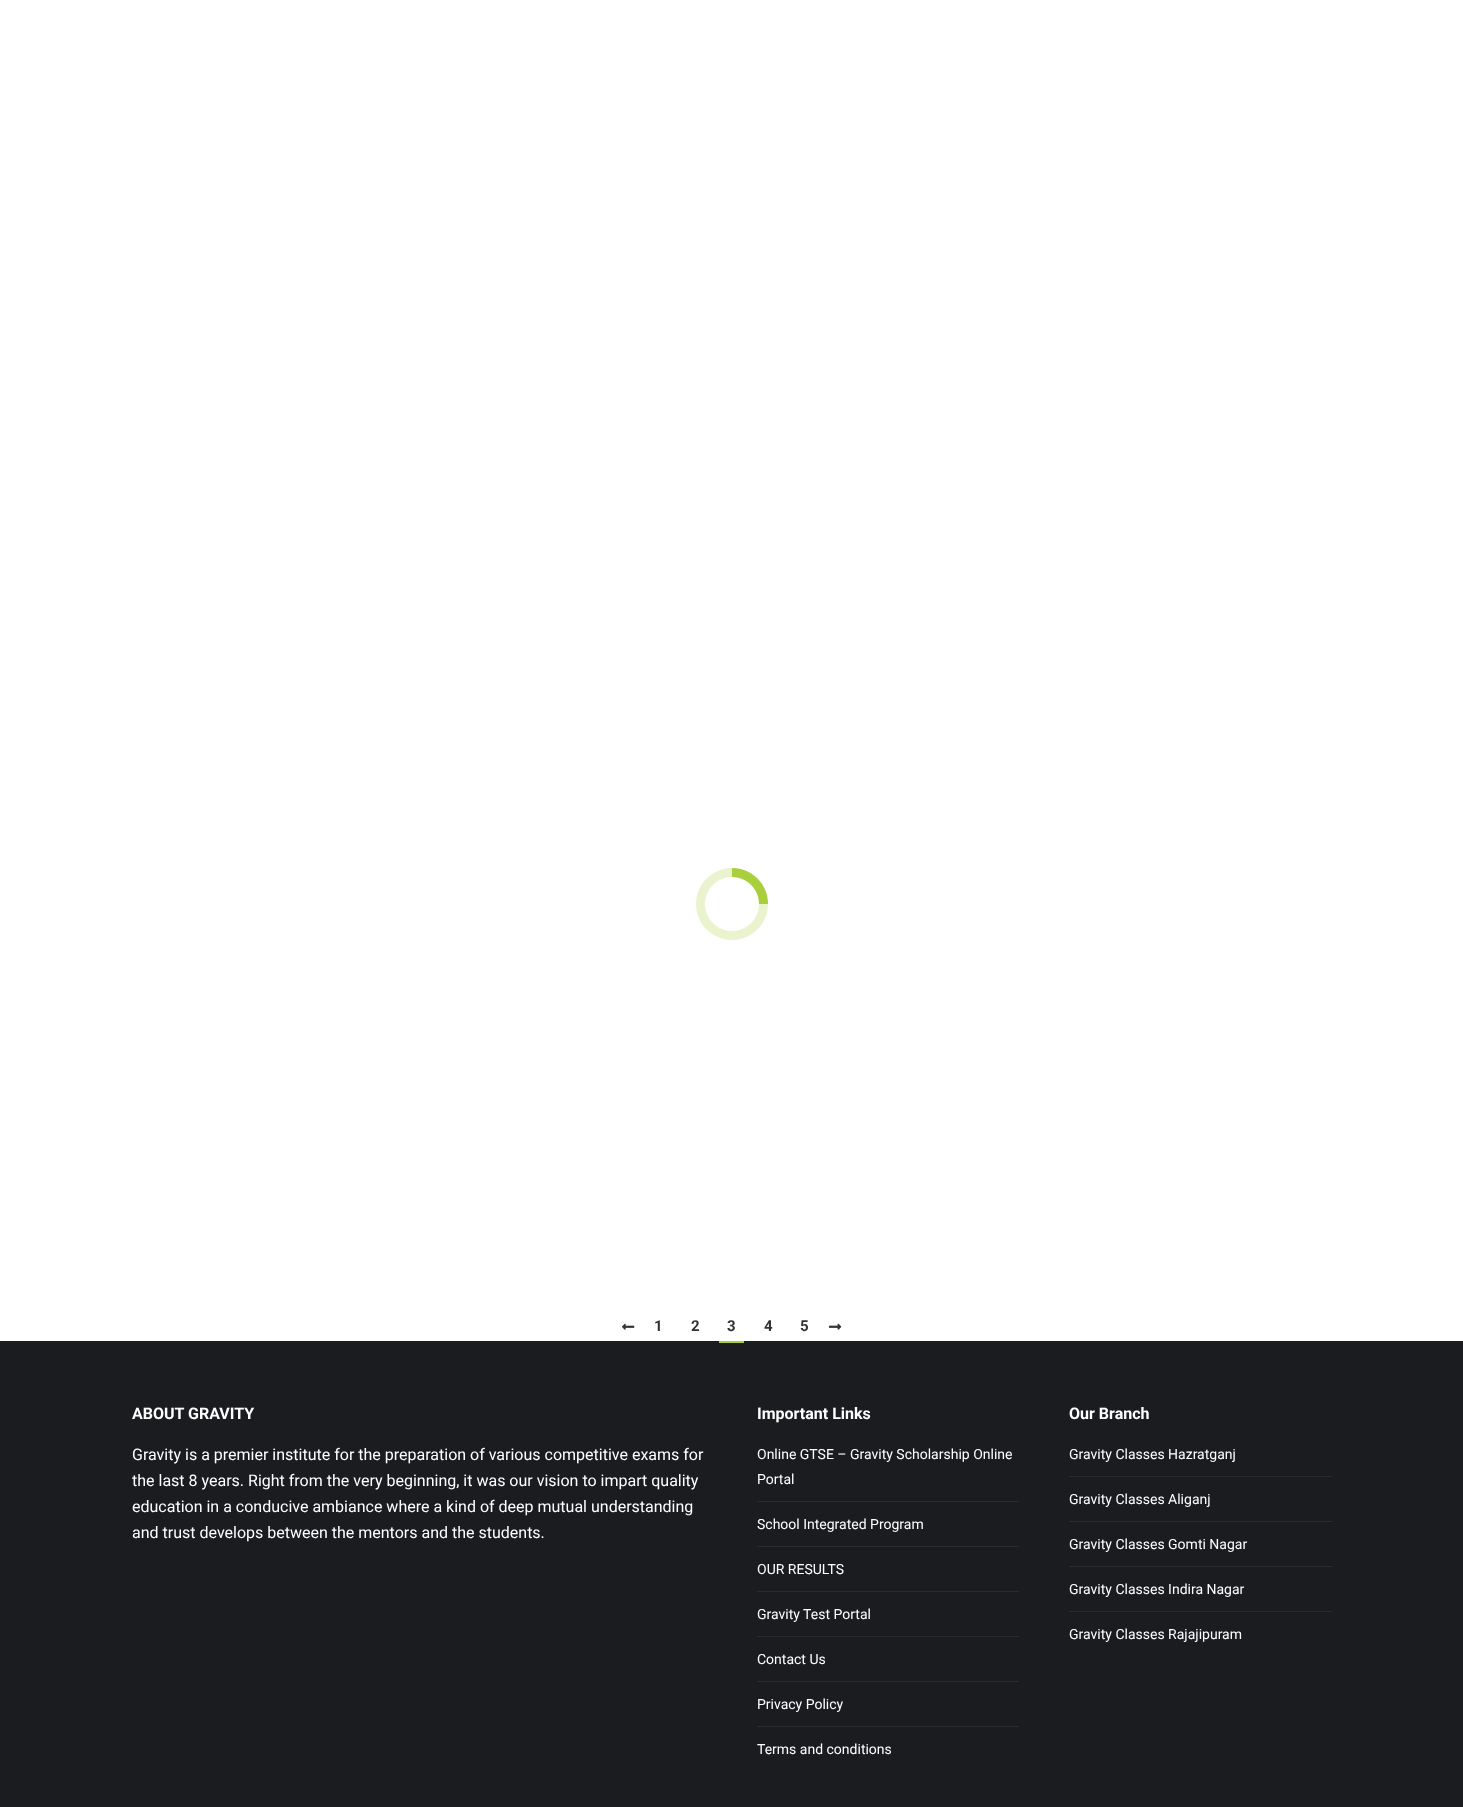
<!DOCTYPE html>
<meta charset="utf-8">
<style>body { margin: 0 } canvas { display: block }</style>
<canvas id="canvas" width="1463" height="1807"></canvas>
<script type="module">
  const canvas = document.getElementById("canvas");
  const ctx = canvas.getContext("2d");
  ctx.miterLimit = 4;
  ctx.fontKerning = "normal";
  async function loadImage(src) {
    const img = new Image();
    img.src = src;
    await img.decode();
    return img;
  }

  ctx.fillStyle = "#ffffff";
  ctx.fillRect(0, 0, 1463, 1807);
  ctx.drawImage(await loadImage("img1.png"), 696, 868, 72, 72);
  ctx.drawImage(await loadImage("img2.png"), 622, 1323, 13, 7);
  ctx.font = "bold 15px Roboto";
  ctx.fillStyle = "#333333";
  ctx.fillText("1", 654, 1331);
  ctx.fillText("2", 691, 1331);
  ctx.fillText("3", 727, 1331);
  ctx.fillStyle = "#1a1c20";
  ctx.fillRect(0, 1341, 1463, 466);
  ctx.fillStyle = "#a9cf3d";
  ctx.fillRect(719, 1341, 25, 2);
  ctx.fillStyle = "#333333";
  ctx.fillText("4", 764, 1331);
  ctx.fillText("5", 800, 1331);
  ctx.drawImage(await loadImage("img3.png"), 829, 1323, 13, 7);
  ctx.font = "bold 16px Roboto";
  ctx.fillStyle = "#ffffff";
  ctx.fillText("ABOUT GRAVITY", 132, 1419);
  ctx.font = "16px Roboto";
  ctx.fillText("Gravity is a premier institute for the preparation of various competitive exams for", 132, 1460);
  ctx.fillText("the last 8 years. Right from the very beginning, it was our vision to impart quality", 132, 1486);
  ctx.fillText("education in a conducive ambiance where a kind of deep mutual understanding", 132, 1512);
  ctx.fillText("and trust develops between the mentors and the students.", 132, 1538);
  ctx.font = "bold 16px Roboto";
  ctx.fillText("Important Links", 757, 1419);
  ctx.font = "14px Roboto";
  ctx.fillText("Online GTSE – Gravity Scholarship Online", 757, 1459);
  ctx.fillText("Portal", 757, 1484);
  ctx.fillStyle = "#2a2c30";
  ctx.fillRect(757, 1501, 262, 1);
  ctx.fillStyle = "#ffffff";
  ctx.fillText("School Integrated Program", 757, 1529);
  ctx.fillStyle = "#2a2c30";
  ctx.fillRect(757, 1546, 262, 1);
  ctx.fillStyle = "#ffffff";
  ctx.fillText("OUR RESULTS", 757, 1574);
  ctx.fillStyle = "#2a2c30";
  ctx.fillRect(757, 1591, 262, 1);
  ctx.fillStyle = "#ffffff";
  ctx.fillText("Gravity Test Portal", 757, 1619);
  ctx.fillStyle = "#2a2c30";
  ctx.fillRect(757, 1636, 262, 1);
  ctx.fillStyle = "#ffffff";
  ctx.fillText("Contact Us", 757, 1664);
  ctx.fillStyle = "#2a2c30";
  ctx.fillRect(757, 1681, 262, 1);
  ctx.fillStyle = "#ffffff";
  ctx.fillText("Privacy Policy", 757, 1709);
  ctx.fillStyle = "#2a2c30";
  ctx.fillRect(757, 1726, 262, 1);
  ctx.fillStyle = "#ffffff";
  ctx.fillText("Terms and conditions", 757, 1754);
  ctx.font = "bold 16px Roboto";
  ctx.fillText("Our Branch", 1069, 1419);
  ctx.font = "14px Roboto";
  ctx.fillText("Gravity Classes Hazratganj", 1069, 1459);
  ctx.fillStyle = "#2a2c30";
  ctx.fillRect(1069, 1476, 263, 1);
  ctx.fillStyle = "#ffffff";
  ctx.fillText("Gravity Classes Aliganj", 1069, 1504);
  ctx.fillStyle = "#2a2c30";
  ctx.fillRect(1069, 1521, 263, 1);
  ctx.fillStyle = "#ffffff";
  ctx.fillText("Gravity Classes Gomti Nagar", 1069, 1549);
  ctx.fillStyle = "#2a2c30";
  ctx.fillRect(1069, 1566, 263, 1);
  ctx.fillStyle = "#ffffff";
  ctx.fillText("Gravity Classes Indira Nagar", 1069, 1594);
  ctx.fillStyle = "#2a2c30";
  ctx.fillRect(1069, 1611, 263, 1);
  ctx.fillStyle = "#ffffff";
  ctx.fillText("Gravity Classes Rajajipuram", 1069, 1639);
</script>
